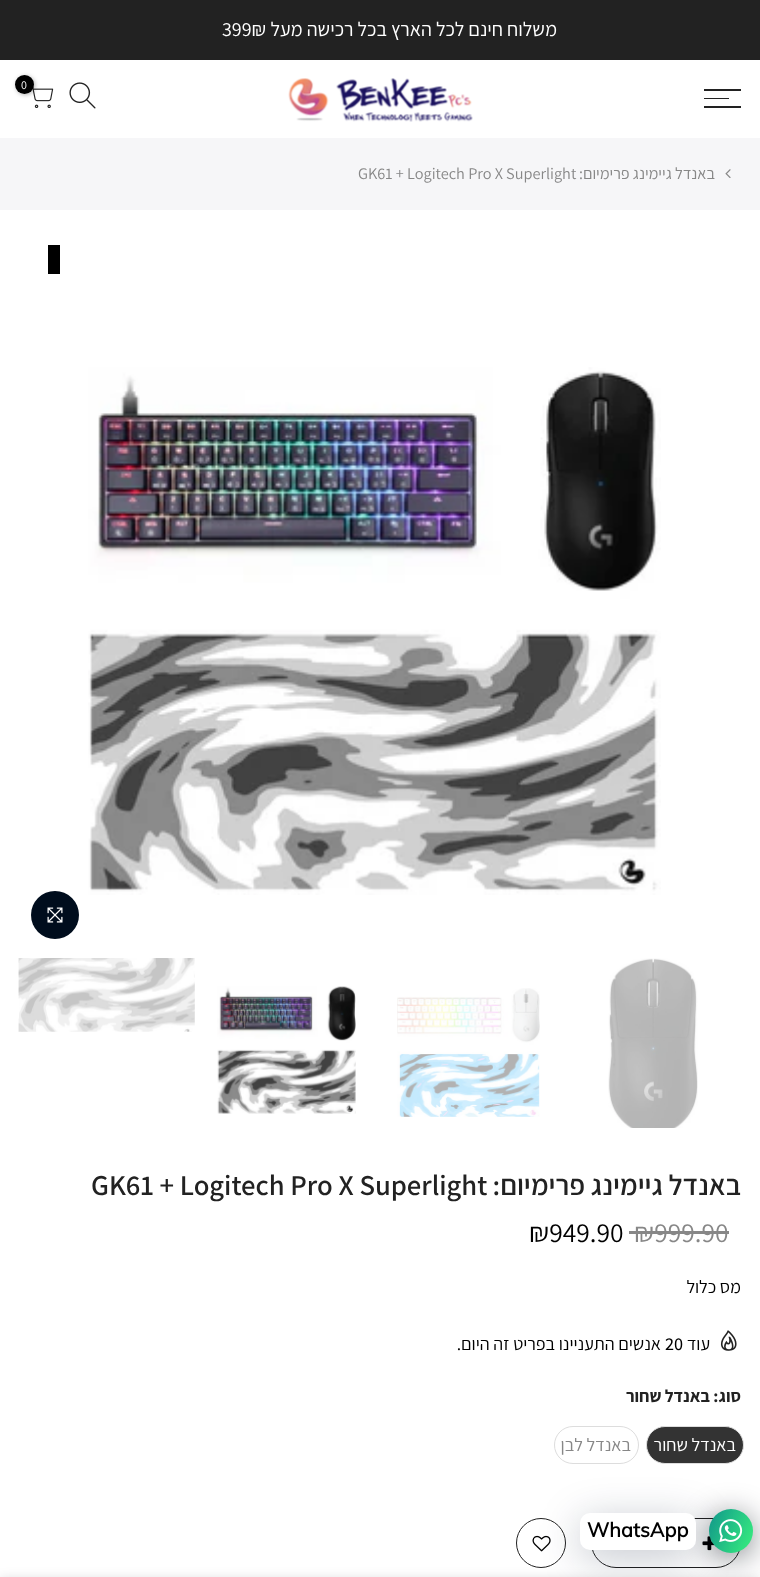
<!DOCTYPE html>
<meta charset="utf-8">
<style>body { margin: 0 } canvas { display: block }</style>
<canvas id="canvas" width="760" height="1577"></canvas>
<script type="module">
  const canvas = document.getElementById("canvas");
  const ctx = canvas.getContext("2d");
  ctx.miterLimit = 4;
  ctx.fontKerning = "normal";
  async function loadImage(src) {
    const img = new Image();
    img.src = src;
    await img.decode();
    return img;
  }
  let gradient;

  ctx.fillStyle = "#ffffff";
  ctx.fillRect(0, 0, 760, 1577);
  ctx.fillStyle = "#222222";
  ctx.fillRect(0, 0, 760, 60);
  ctx.direction = "rtl";
  ctx.font = "20px Assistant";
  ctx.fillStyle = "#ffffff";
  ctx.fillText("משלוח חינם לכל הארץ בכל רכישה מעל", 557, 36);
  ctx.direction = "ltr";
  ctx.fillText("399₪", 222, 36);
  ctx.drawImage(await loadImage("img1.png"), 288, 78, 185, 44);
  ctx.drawImage(await loadImage("img2.png"), 69, 82, 27, 27);
  ctx.drawImage(await loadImage("img3.png"), 32, 86, 22, 22);
  ctx.fillStyle = "rgba(0, 0, 0, 0.3)";
  ctx.filter = "blur(2px)";
  ctx.beginPath();
  ctx.roundRect(16, 76, 19, 19, 9.5);
  ctx.fill();
  ctx.filter = "none";
  ctx.fillStyle = "#000000";
  ctx.beginPath();
  ctx.arc(24.5, 84.5, 9.5, 0, Math.PI * 2);
  ctx.fill();
  ctx.font = "12px Assistant";
  ctx.fillStyle = "#ffffff";
  ctx.fillText("0", 21, 89);
  ctx.fillStyle = "#222222";
  ctx.fillRect(704, 89, 37, 2);
  ctx.fillRect(704, 98, 25, 1);
  ctx.fillRect(704, 106, 37, 2);
  ctx.fillStyle = "#f6f6f8";
  ctx.fillRect(0, 138, 760, 72);
  ctx.drawImage(await loadImage("img4.png"), 725, 169, 6, 9);
  ctx.direction = "rtl";
  ctx.font = "16.25px Assistant";
  ctx.fillStyle = "#878787";
  ctx.fillText("באנדל גיימינג פרימיום:", 715, 179);
  ctx.direction = "ltr";
  ctx.fillText("GK61 + Logitech Pro X Superlight", 358, 179);
  ctx.fillStyle = "#000000";
  ctx.fillRect(48, 245, 12, 29);
  ctx.drawImage(await loadImage("img5.png"), 88, 367, 573, 528);
  ctx.fillStyle = "#000d1d";
  ctx.beginPath();
  ctx.arc(55, 915, 24, 0, Math.PI * 2);
  ctx.fill();
  ctx.drawImage(await loadImage("img6.png"), 47, 907, 16, 16);
  ctx.drawImage(await loadImage("img7.png"), 608, 958, 90, 170);
  ctx.drawImage(await loadImage("img8.png"), 397, 988, 143, 129);
  ctx.drawImage(await loadImage("img9.png"), 217, 986, 139, 128);
  ctx.drawImage(await loadImage("img10.png"), 18, 958, 177, 74);
  ctx.direction = "rtl";
  ctx.font = "600 28.75px Assistant";
  ctx.fillStyle = "#222222";
  ctx.fillText("באנדל גיימינג פרימיום:", 741, 1195);
  ctx.direction = "ltr";
  ctx.fillText("GK61 + Logitech Pro X Superlight", 91, 1195);
  ctx.font = "27.5px Assistant";
  ctx.fillStyle = "#878787";
  ctx.fillText("₪999.90", 634, 1242);
  ctx.fillRect(629, 1231, 100, 3);
  ctx.fillStyle = "#000000";
  ctx.fillText("₪949.90", 529, 1242);
  ctx.direction = "rtl";
  ctx.font = "18.1px Assistant";
  ctx.fillText("מס כלול", 741, 1293);
  ctx.drawImage(await loadImage("img11.png"), 720, 1330, 17, 21);
  ctx.fillText("עוד", 710, 1350);
  ctx.direction = "ltr";
  ctx.font = "500 18.1px Assistant";
  ctx.fillText("20", 665, 1350);
  ctx.direction = "rtl";
  ctx.font = "18.1px Assistant";
  ctx.fillText("אנשים התעניינו בפריט זה היום.", 661, 1350);
  ctx.font = "bold 17.5px Assistant";
  ctx.fillStyle = "#222222";
  ctx.fillText("סוג:", 741, 1402);
  ctx.fillText("באנדל שחור", 710, 1402);
  ctx.fillStyle = "#333333";
  ctx.beginPath();
  ctx.roundRect(646.5, 1426.5, 97, 37, 18.5);
  ctx.fill();
  ctx.strokeStyle = "#dddddd";
  ctx.stroke();
  ctx.font = "18.1px Assistant";
  ctx.fillStyle = "#ffffff";
  ctx.fillText("באנדל שחור", 736, 1451);
  ctx.beginPath();
  ctx.roundRect(554.5, 1426.5, 84, 37, 18.5);
  ctx.stroke();
  ctx.fillStyle = "#878787";
  ctx.fillText("באנדל לבן", 631, 1451);
  ctx.beginPath();
  ctx.roundRect(591.5, 1518.5, 149, 49, 24.5);
  ctx.strokeStyle = "#222222";
  ctx.stroke();
  ctx.drawImage(await loadImage("img12.png"), 702, 1536, 13, 15);
  ctx.beginPath();
  ctx.arc(541, 1543, 24.5, 0, Math.PI * 2);
  ctx.stroke();
  ctx.drawImage(await loadImage("img13.png"), 532, 1535, 19, 17);
  ctx.beginPath();
  ctx.moveTo(533.5, 1551.5);
  ctx.bezierCurveTo(529.5, 1547, 529.5, 1540.5, 533.5, 1536);
  ctx.strokeStyle = "#ffffff";
  ctx.lineWidth = 1.2;
  ctx.stroke();
  ctx.fillStyle = "rgba(2, 6, 16, 0.5)";
  ctx.filter = "blur(15px)";
  ctx.beginPath();
  ctx.roundRect(709, 1514, 44, 44, 22);
  ctx.fill();
  ctx.filter = "none";
  gradient = ctx.createLinearGradient(704, 1518, 757, 1543);
  gradient.addColorStop(0, "#11998e");
  gradient.addColorStop(1, "#38ef7d");
  ctx.fillStyle = gradient;
  ctx.beginPath();
  ctx.arc(731, 1531, 22, 0, Math.PI * 2);
  ctx.fill();
  ctx.fillStyle = "rgba(0, 18, 46, 0.24)";
  ctx.filter = "blur(20px)";
  ctx.beginPath();
  ctx.roundRect(580, 1520, 116, 38, 10);
  ctx.fill();
  ctx.filter = "none";
  ctx.drawImage(await loadImage("img14.png"), 719, 1519, 24, 23);
  ctx.fillStyle = "#ffffff";
  ctx.beginPath();
  ctx.roundRect(580, 1513, 116, 37, 10);
  ctx.fill();
  ctx.direction = "ltr";
  ctx.font = "bold 20px Muli";
  ctx.fillStyle = "#000000";
  ctx.fillText("WhatsApp", 587, 1537);
  ctx.fillStyle = "rgba(0, 0, 0, 0.12)";
  ctx.filter = "blur(5.5px)";
  ctx.beginPath();
  ctx.rect(0, 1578, 760, 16);
  ctx.fill();
  ctx.filter = "none";
</script>
